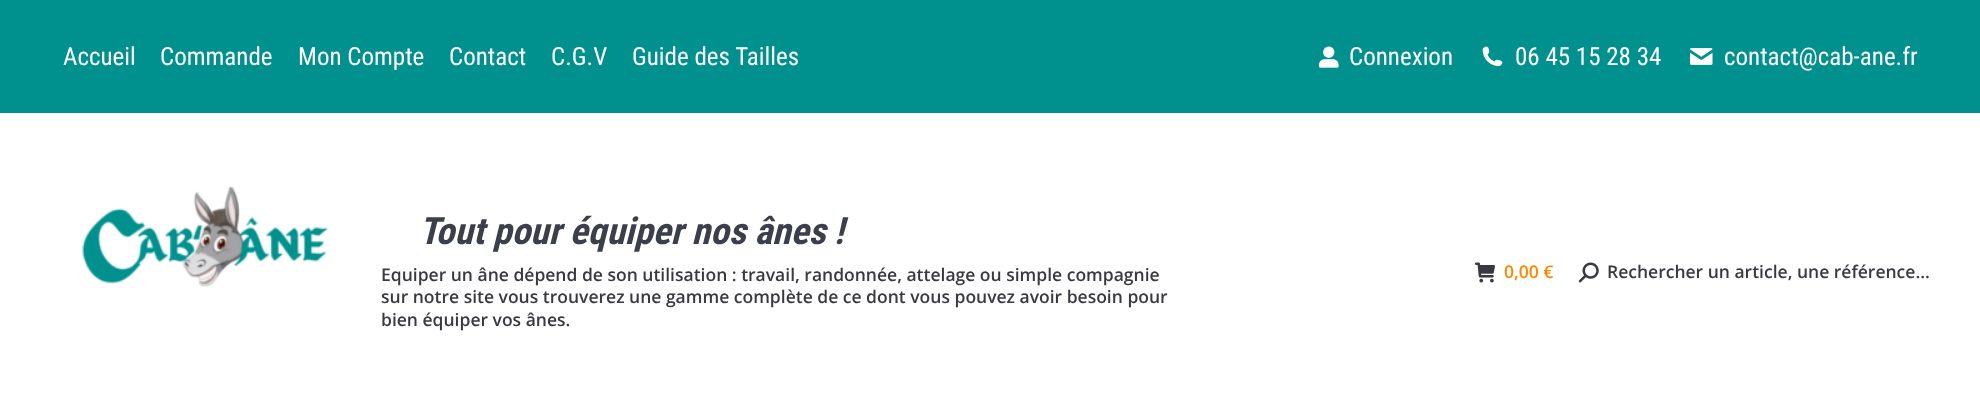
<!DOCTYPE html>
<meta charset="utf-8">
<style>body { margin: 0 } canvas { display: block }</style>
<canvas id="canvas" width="1980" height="399"></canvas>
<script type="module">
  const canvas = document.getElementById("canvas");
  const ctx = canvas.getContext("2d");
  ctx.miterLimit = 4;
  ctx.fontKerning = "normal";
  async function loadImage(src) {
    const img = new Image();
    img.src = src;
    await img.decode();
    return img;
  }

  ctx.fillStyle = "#ffffff";
  ctx.fillRect(0, 0, 1980, 399);
  ctx.fillStyle = "#00918e";
  ctx.fillRect(0, 0, 1980, 113);
  ctx.font = "25px Roboto Condensed";
  ctx.fillStyle = "#ffffff";
  ctx.fillText("Accueil", 63, 65);
  ctx.fillText("Commande", 160, 65);
  ctx.fillText("Mon Compte", 298, 65);
  ctx.fillText("Contact", 449, 65);
  ctx.fillText("C.G.V", 551, 65);
  ctx.fillText("Guide des Tailles", 632, 65);
  ctx.drawImage(await loadImage("img1.png"), 1318, 46, 21, 22);
  ctx.fillText("Connexion", 1349, 65);
  ctx.drawImage(await loadImage("img2.png"), 1482, 46, 21, 21);
  ctx.fillText("06 45 15 28 34", 1515, 65);
  ctx.drawImage(await loadImage("img3.png"), 1690, 48, 23, 17);
  ctx.fillText("contact@cab-ane.fr", 1724, 65);
  ctx.drawImage(await loadImage("img4.png"), 82, 186, 246, 101);
  ctx.font = "italic bold 37.5px Roboto Condensed";
  ctx.fillStyle = "#3b3f4a";
  ctx.fillText("Tout pour équiper nos ânes !", 419, 244);
  ctx.font = "600 17.5px Open Sans";
  ctx.fillStyle = "#393940";
  ctx.fillText("Equiper un âne dépend de son utilisation : travail, randonnée, attelage ou simple compagnie", 381, 281);
  ctx.fillText("sur notre site vous trouverez une gamme complète de ce dont vous pouvez avoir besoin pour", 381, 303);
  ctx.fillText("bien équiper vos ânes.", 381, 326);
  ctx.drawImage(await loadImage("img5.png"), 1475, 262, 20, 21);
  ctx.fillStyle = "#fe8701";
  ctx.fillText("0,00 €", 1504, 278);
  ctx.drawImage(await loadImage("img6.png"), 1578, 262, 21, 21);
  ctx.fillStyle = "#393940";
  ctx.fillText("Rechercher un article, une référence...", 1607, 278);
</script>
